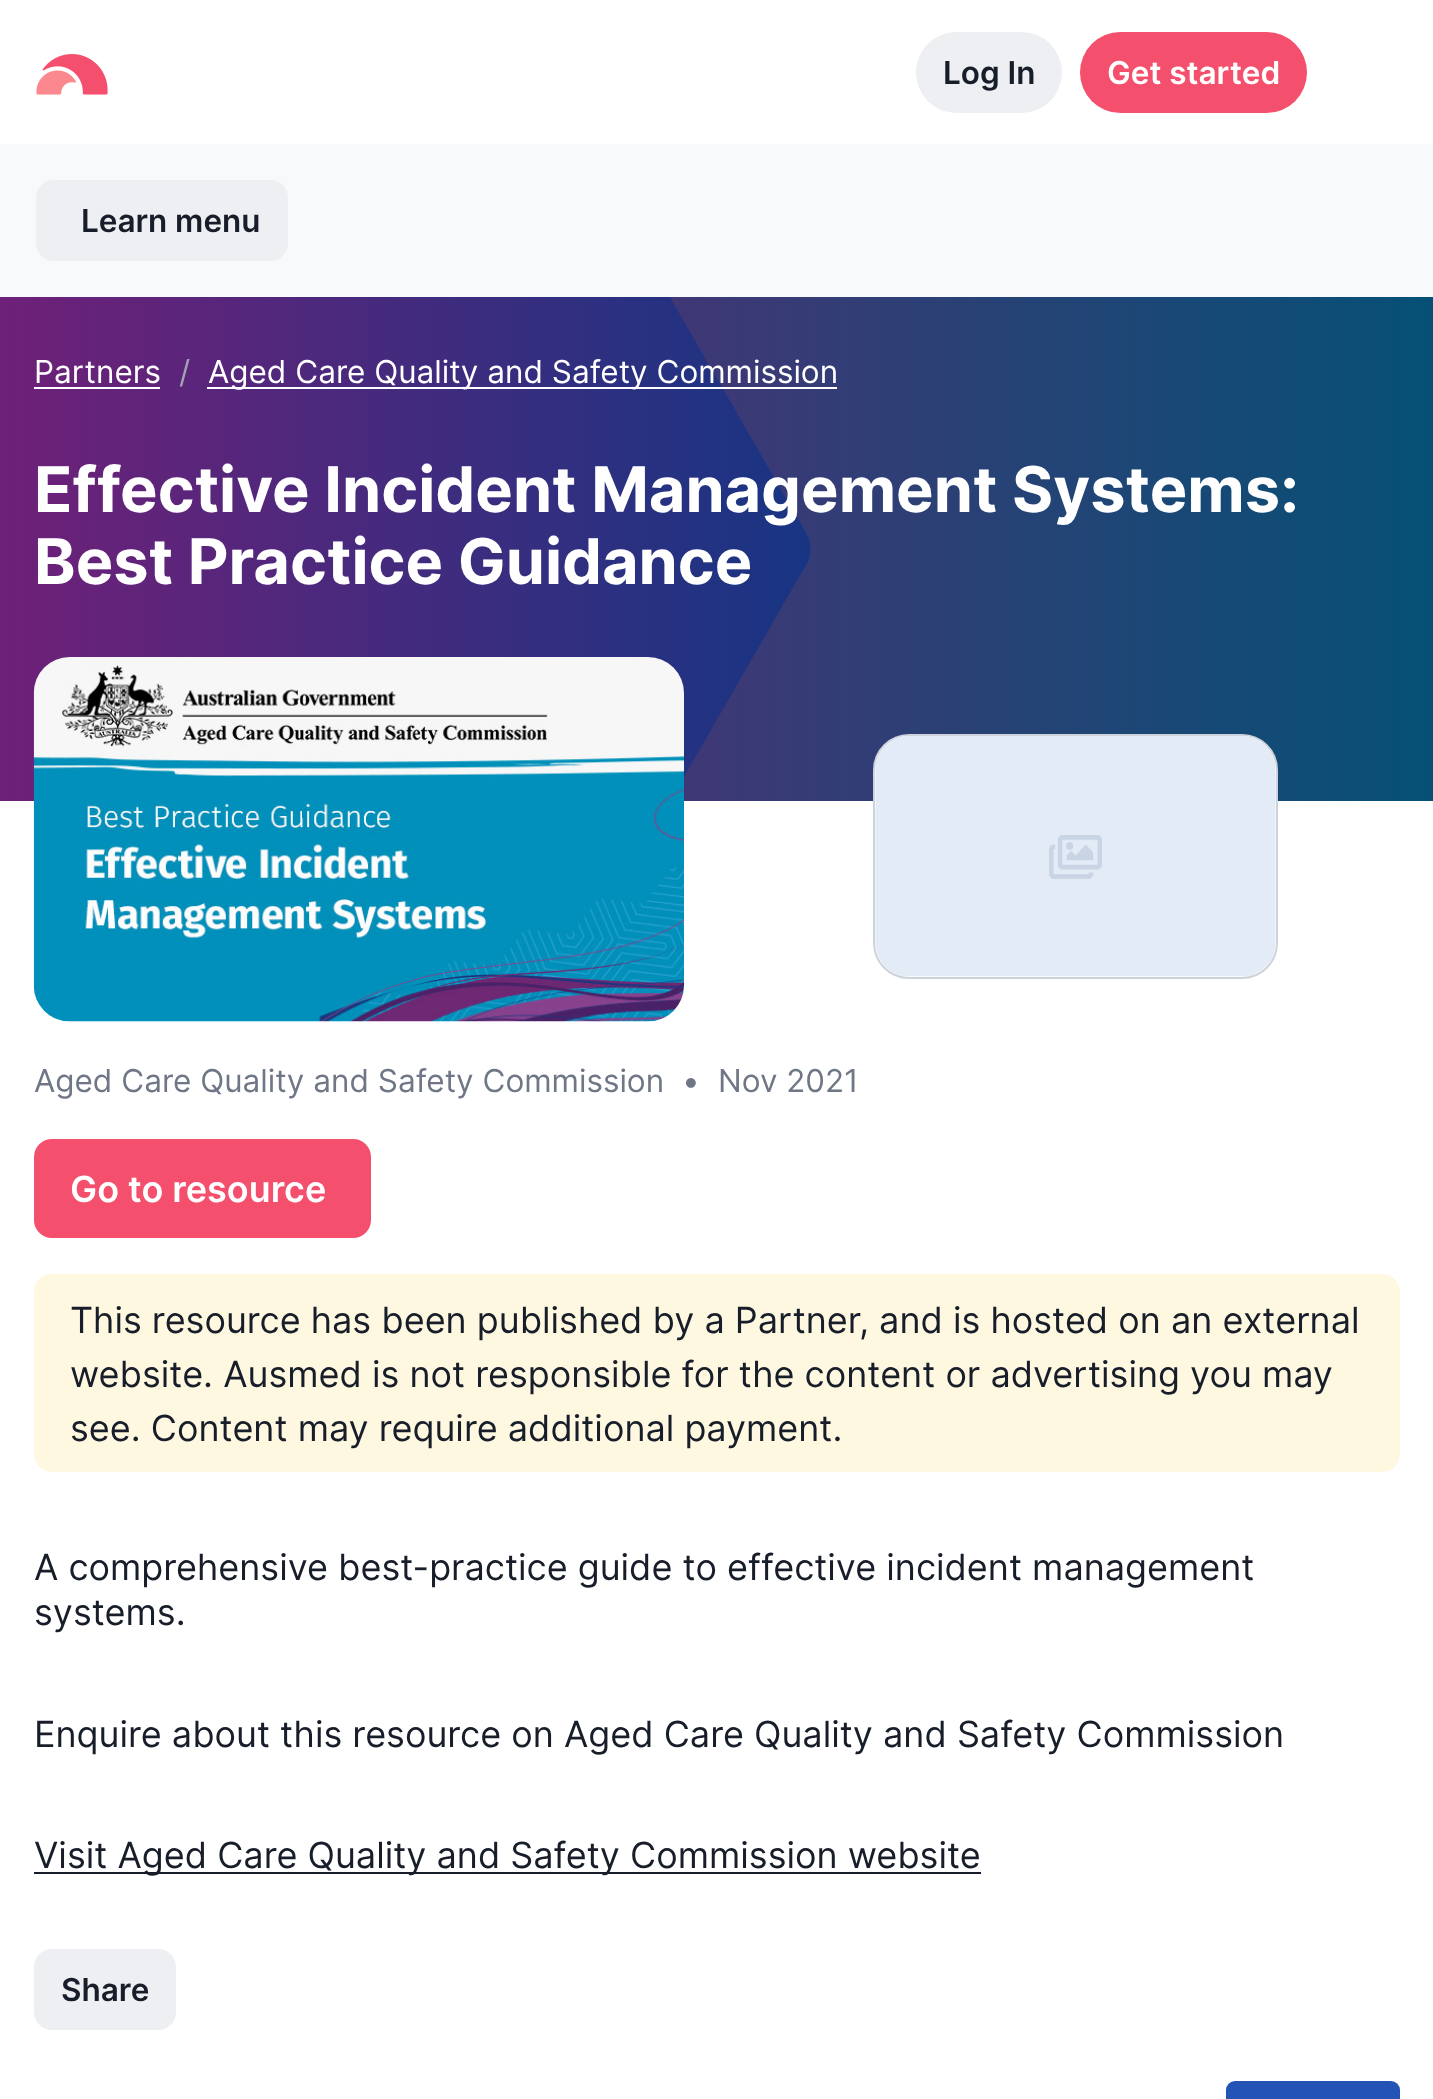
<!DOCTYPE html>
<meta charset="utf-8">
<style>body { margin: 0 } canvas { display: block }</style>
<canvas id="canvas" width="1433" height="2099"></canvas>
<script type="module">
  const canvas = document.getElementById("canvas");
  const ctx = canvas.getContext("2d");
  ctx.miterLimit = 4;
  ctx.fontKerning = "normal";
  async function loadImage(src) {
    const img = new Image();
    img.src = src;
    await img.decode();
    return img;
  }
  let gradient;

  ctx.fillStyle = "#ffffff";
  ctx.fillRect(0, 0, 1433, 2099);
  ctx.drawImage(await loadImage("img1.png"), 36, 54, 72, 41);
  ctx.fillStyle = "#edeff2";
  ctx.beginPath();
  ctx.roundRect(916, 32, 146, 81, 40.5);
  ctx.fill();
  ctx.font = "600 31.5px Inter";
  ctx.fillStyle = "#171d29";
  ctx.fillText("Log In", 943, 84);
  ctx.fillStyle = "#f44f6c";
  ctx.beginPath();
  ctx.roundRect(1080, 32, 227, 81, 40.5);
  ctx.fill();
  ctx.fillStyle = "#ffffff";
  ctx.fillText("Get started", 1107, 84);
  ctx.fillStyle = "#f8f9fb";
  ctx.fillRect(0, 144, 1433, 153);
  ctx.fillStyle = "#edeff2";
  ctx.beginPath();
  ctx.roundRect(36, 180, 252, 81, 18);
  ctx.fill();
  ctx.fillStyle = "#171d29";
  ctx.fillText("Learn menu", 81, 232);
  gradient = ctx.createLinearGradient(-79, 549, 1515, 549);
  gradient.addColorStop(0, "#781e77");
  gradient.addColorStop(1, "#005375");
  ctx.fillStyle = gradient;
  ctx.fillRect(670, 297, 763, 504);
  gradient = ctx.createLinearGradient(-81, 549, 811, 549);
  gradient.addColorStop(0, "#781e77");
  gradient.addColorStop(1, "#173583");
  ctx.fillStyle = gradient;
  ctx.beginPath();
  ctx.moveTo(670, 297);
  ctx.lineTo(-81, 297);
  ctx.lineTo(-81, 801);
  ctx.lineTo(670, 801);
  ctx.lineTo(806, 565);
  ctx.bezierCurveTo(812, 555, 812, 543, 806, 533);
  ctx.closePath();
  ctx.fill();
  ctx.font = "31.5px Inter";
  ctx.fillStyle = "#ffffff";
  ctx.fillText("Partners", 34, 383);
  ctx.fillRect(34, 387, 126, 2);
  ctx.fillStyle = "#a0a5b1";
  ctx.fillText("/", 179, 383);
  ctx.fillStyle = "#ffffff";
  ctx.fillRect(207, 387, 630, 2);
  ctx.fillText("Aged Care Quality and Safety Commission", 208, 383);
  ctx.font = "bold 63px Inter";
  ctx.fillText("Effective Incident Management Systems:", 34, 512);
  ctx.fillText("Best Practice Guidance", 34, 584);
  ctx.drawImage(await loadImage("img2.png"), 33, 657, 651, 365);
  ctx.beginPath();
  ctx.roundRect(874, 735, 403, 243, 35);
  ctx.fill();
  ctx.strokeStyle = "#ced2da";
  ctx.lineWidth = 2;
  ctx.stroke();
  ctx.drawImage(await loadImage("img3.png"), 875, 736, 401, 241);
  ctx.font = "31.5px Inter";
  ctx.fillStyle = "#6f7786";
  ctx.fillText("Aged Care Quality and Safety Commission", 34, 1092);
  ctx.fillText("•", 682, 1092);
  ctx.fillText("Nov 2021", 718, 1092);
  ctx.fillStyle = "#f44f6c";
  ctx.beginPath();
  ctx.roundRect(34, 1139, 337, 99, 18);
  ctx.fill();
  ctx.font = "600 36px Inter";
  ctx.fillStyle = "#ffffff";
  ctx.fillText("Go to resource", 70, 1202);
  ctx.fillStyle = "#fff8e1";
  ctx.beginPath();
  ctx.roundRect(34, 1274, 1366, 198, 18);
  ctx.fill();
  ctx.font = "36px Inter";
  ctx.fillStyle = "#171d29";
  ctx.fillText("This resource has been published by a Partner, and is hosted on an external", 70, 1333);
  ctx.fillText("website. Ausmed is not responsible for the content or advertising you may", 70, 1387);
  ctx.fillText("see. Content may require additional payment.", 70, 1441);
  ctx.fillText("A comprehensive best-practice guide to effective incident management", 34, 1580);
  ctx.fillText("systems.", 34, 1625);
  ctx.fillText("Enquire about this resource on Aged Care Quality and Safety Commission", 34, 1747);
  ctx.fillRect(34, 1872, 947, 2);
  ctx.fillText("Visit Aged Care Quality and Safety Commission website", 34, 1868);
  ctx.fillStyle = "#edeff2";
  ctx.beginPath();
  ctx.roundRect(34, 1949, 142, 81, 18);
  ctx.fill();
  ctx.font = "600 31.5px Inter";
  ctx.fillStyle = "#171d29";
  ctx.fillText("Share", 61, 2001);
  ctx.fillStyle = "#2353b4";
  ctx.beginPath();
  ctx.roundRect(1226, 2081, 174, 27, 9);
  ctx.fill();
</script>
